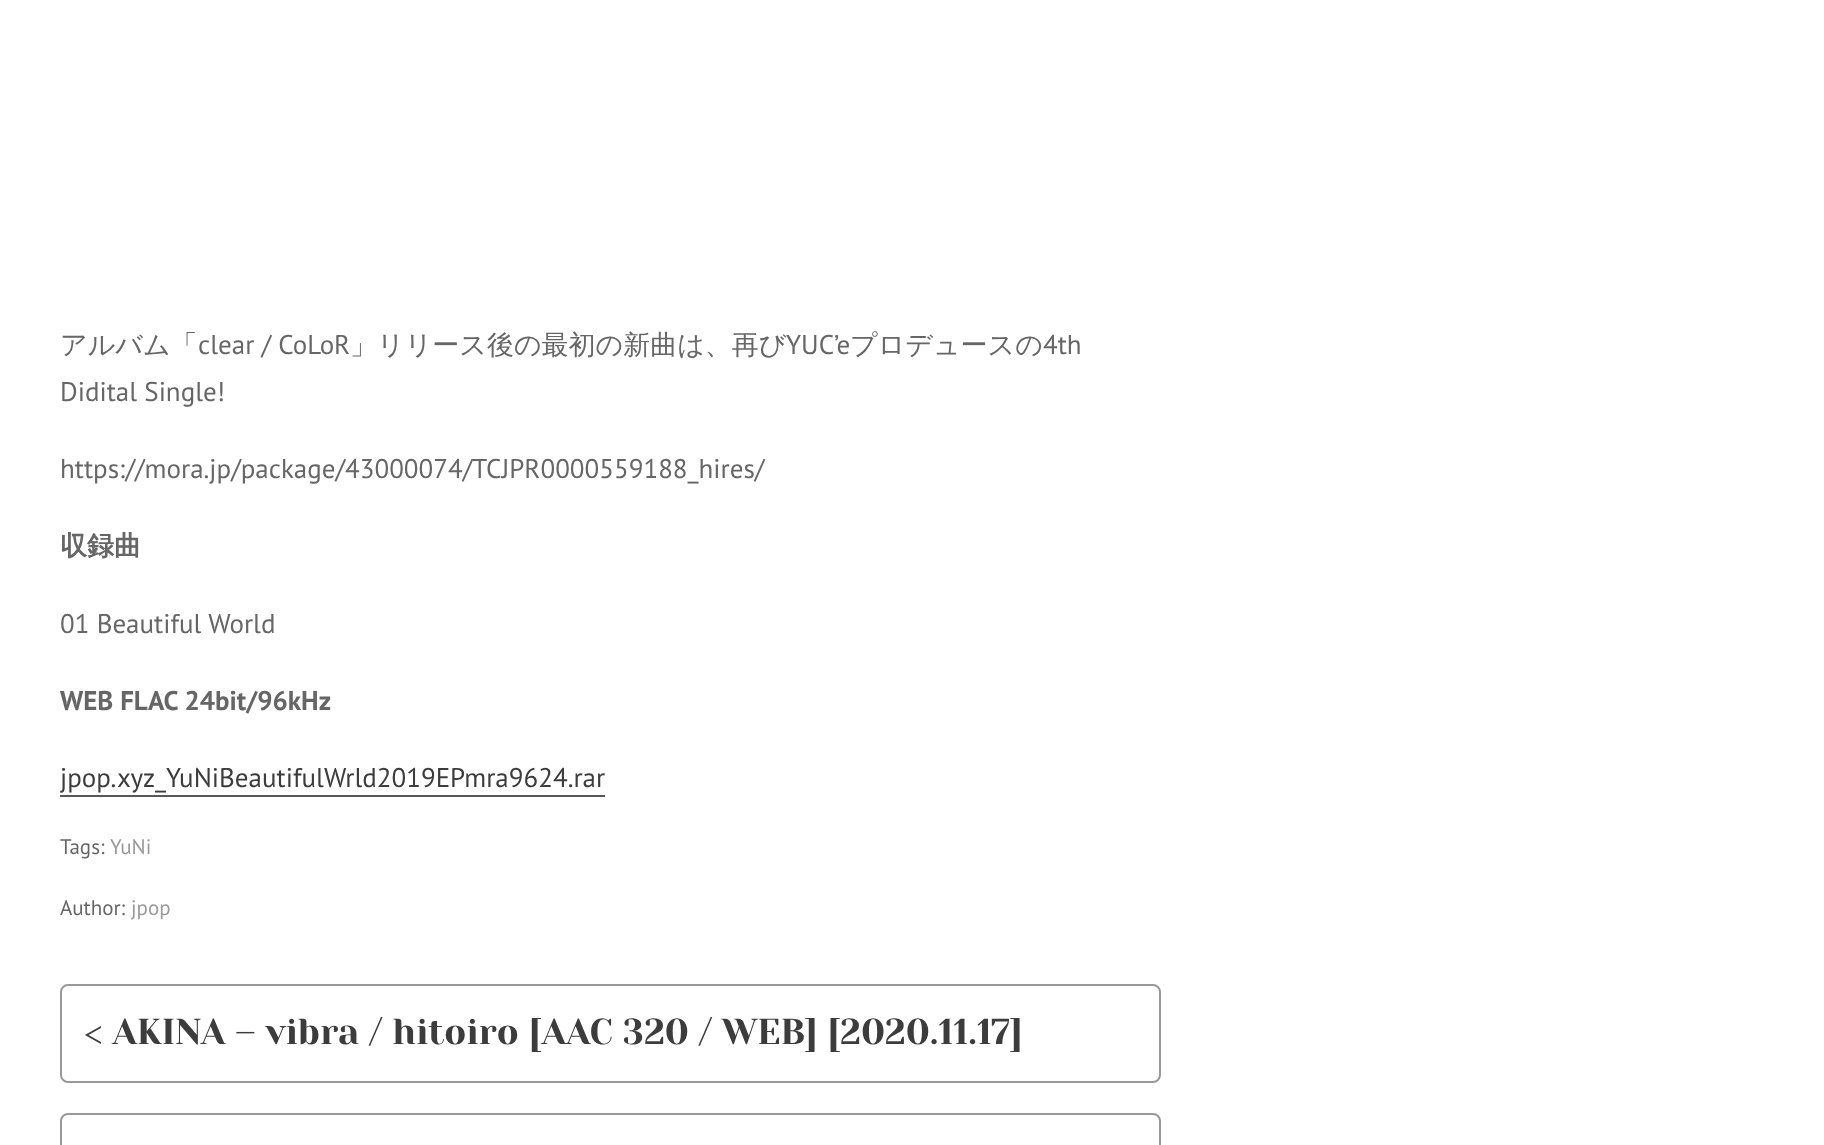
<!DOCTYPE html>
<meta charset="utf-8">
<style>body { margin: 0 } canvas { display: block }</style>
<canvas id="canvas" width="1824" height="1145"></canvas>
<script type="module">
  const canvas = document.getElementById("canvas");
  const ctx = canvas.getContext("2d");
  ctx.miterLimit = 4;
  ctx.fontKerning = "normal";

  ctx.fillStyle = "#ffffff";
  ctx.fillRect(0, 0, 1824, 1145);
  ctx.font = "500 27px WenQuanYi Zen Hei";
  ctx.fillStyle = "#666666";
  ctx.fillText("アルバム「", 60, 354);
  ctx.font = "27px PT Sans";
  ctx.fillText("clear / CoLoR", 198, 354);
  ctx.font = "500 27px WenQuanYi Zen Hei";
  ctx.fillText("」リリース後の最初の新曲は、再び", 350, 354);
  ctx.font = "27px PT Sans";
  ctx.fillText("YUC’e", 786, 354);
  ctx.font = "500 27px WenQuanYi Zen Hei";
  ctx.fillText("プロデュースの", 850, 354);
  ctx.font = "27px PT Sans";
  ctx.fillText("4th", 1043, 354);
  ctx.fillText("Didital Single!", 60, 401);
  ctx.fillText("https://mora.jp/package/43000074/TCJPR0000559188_hires/", 60, 478);
  ctx.font = "bold 27px WenQuanYi Zen Hei";
  ctx.fillText("収録曲", 60, 555);
  ctx.font = "27px PT Sans";
  ctx.fillText("01 Beautiful World", 60, 633);
  ctx.font = "bold 27px PT Sans";
  ctx.fillText("WEB FLAC 24bit/96kHz", 60, 710);
  ctx.font = "27px PT Sans";
  ctx.fillStyle = "#3c3c3c";
  ctx.fillText("jpop.xyz_YuNiBeautifulWrld2019EPmra9624.rar", 60, 787);
  ctx.fillStyle = "#575757";
  ctx.fillRect(60, 795, 545, 2);
  ctx.font = "21px PT Sans";
  ctx.fillStyle = "#666666";
  ctx.fillText("Tags:", 60, 854);
  ctx.fillStyle = "#999999";
  ctx.fillText("YuNi", 110, 854);
  ctx.fillStyle = "#666666";
  ctx.fillText("Author:", 60, 915);
  ctx.fillStyle = "#999999";
  ctx.fillText("jpop", 131, 915);
  ctx.beginPath();
  ctx.roundRect(61, 985, 1099, 97, 7);
  ctx.strokeStyle = "#999999";
  ctx.lineWidth = 2;
  ctx.stroke();
  ctx.font = "36px Yeseva One";
  ctx.fillStyle = "#3c3c3c";
  ctx.fillText("< AKINA – vibra / hitoiro [AAC 320 / WEB] [2020.11.17]", 84, 1044);
  ctx.beginPath();
  ctx.roundRect(61, 1114, 1099, 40, 7);
  ctx.stroke();
</script>
